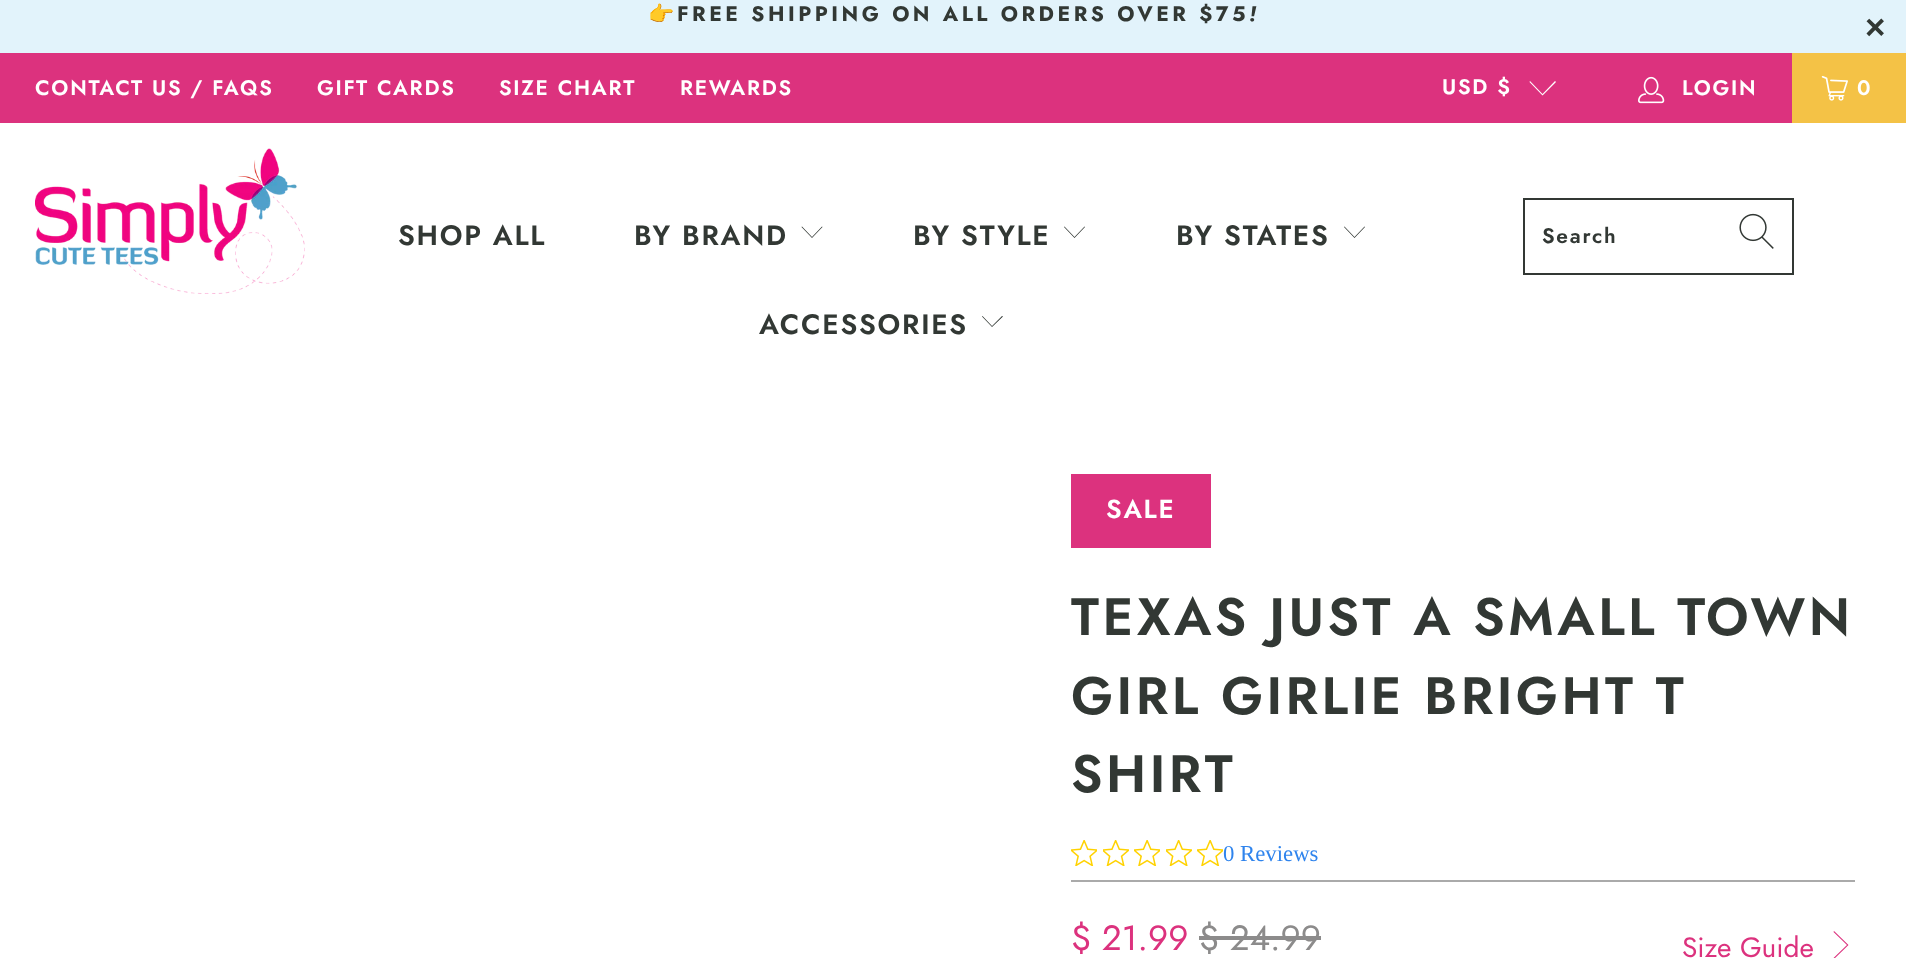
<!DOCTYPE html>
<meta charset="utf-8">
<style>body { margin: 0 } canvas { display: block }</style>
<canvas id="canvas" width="1906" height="958"></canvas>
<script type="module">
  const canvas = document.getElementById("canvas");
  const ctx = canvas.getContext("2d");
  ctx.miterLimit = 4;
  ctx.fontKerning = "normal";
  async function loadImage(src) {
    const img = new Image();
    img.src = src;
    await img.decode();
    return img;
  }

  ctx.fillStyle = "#ffffff";
  ctx.fillRect(0, 0, 1906, 958);
  ctx.fillStyle = "#e2f3fb";
  ctx.fillRect(0, 0, 1906, 53);
  ctx.letterSpacing = "3.5px";
  ctx.font = "bold 21px Noto Color Emoji";
  ctx.fillStyle = "#323834";
  ctx.fillText("👉", 648, 21);
  ctx.font = "bold 21px Jost";
  ctx.fillText("FREE SHIPPING ON ALL ORDERS OVER $75", 677, 21);
  ctx.font = "italic bold 21px Jost";
  ctx.fillText("!", 1249, 21);
  ctx.font = "bold 35px Liberation Sans";
  ctx.fillText("×", 1865, 39);
  ctx.fillStyle = "#dc327e";
  ctx.fillRect(0, 53, 1792, 70);
  ctx.letterSpacing = "1.75px";
  ctx.font = "600 21px Jost";
  ctx.fillStyle = "#ffffff";
  ctx.fillText("CONTACT US / FAQS", 35, 95);
  ctx.fillText("GIFT CARDS", 317, 95);
  ctx.fillText("SIZE CHART", 499, 95);
  ctx.fillText("REWARDS", 680, 95);
  ctx.fillText("USD $", 1442, 94);
  ctx.beginPath();
  ctx.moveTo(1542.5, 95.5);
  ctx.lineTo(1529.5, 82);
  ctx.lineTo(1530, 81);
  ctx.lineTo(1542.5, 94);
  ctx.lineTo(1555, 81);
  ctx.lineTo(1556, 82);
  ctx.closePath();
  ctx.fill();
  ctx.drawImage(await loadImage("img1.png"), 1638, 76, 27, 28);
  ctx.fillText("LOGIN", 1682, 95);
  ctx.fillStyle = "#f4c246";
  ctx.fillRect(1792, 53, 114, 70);
  ctx.drawImage(await loadImage("img2.png"), 1821, 75, 27, 26);
  ctx.fillStyle = "#ffffff";
  ctx.fillText("0", 1857, 95);
  ctx.drawImage(await loadImage("img3.png"), 35, 148, 270, 146);
  ctx.font = "600 28px Jost";
  ctx.fillStyle = "#323834";
  ctx.fillText("SHOP ALL", 398, 245);
  ctx.fillText("BY BRAND", 634, 245);
  ctx.beginPath();
  ctx.moveTo(812, 238);
  ctx.lineTo(801.5, 227);
  ctx.lineTo(802, 226.5);
  ctx.lineTo(812, 237);
  ctx.lineTo(822, 226.5);
  ctx.lineTo(822.5, 227);
  ctx.closePath();
  ctx.fill();
  ctx.fillText("BY STYLE", 913, 245);
  ctx.beginPath();
  ctx.moveTo(1074.5, 238);
  ctx.lineTo(1064, 227);
  ctx.lineTo(1064.5, 226.5);
  ctx.lineTo(1074.5, 237);
  ctx.lineTo(1084.5, 226.5);
  ctx.lineTo(1085, 227);
  ctx.closePath();
  ctx.fill();
  ctx.fillText("BY STATES", 1176, 245);
  ctx.beginPath();
  ctx.moveTo(1354.5, 238);
  ctx.lineTo(1344, 227);
  ctx.lineTo(1344.5, 226.5);
  ctx.lineTo(1354.5, 237);
  ctx.lineTo(1364.5, 226.5);
  ctx.lineTo(1365, 227);
  ctx.closePath();
  ctx.fill();
  ctx.fillText("ACCESSORIES", 759, 334);
  ctx.beginPath();
  ctx.moveTo(992, 327);
  ctx.lineTo(982, 316.5);
  ctx.lineTo(982.5, 316);
  ctx.lineTo(992, 326);
  ctx.lineTo(1002, 316);
  ctx.lineTo(1003, 316.5);
  ctx.closePath();
  ctx.fill();
  ctx.strokeStyle = "#323834";
  ctx.lineWidth = 2;
  ctx.strokeRect(1524, 199, 269, 75);
  ctx.font = "600 21px Jost";
  ctx.fillText("Search", 1542, 243);
  ctx.drawImage(await loadImage("img4.png"), 1739, 213, 35, 36);
  ctx.fillStyle = "#dc327e";
  ctx.fillRect(1071, 474, 140, 74);
  ctx.font = "600 26px Jost";
  ctx.fillStyle = "#ffffff";
  ctx.fillText("SALE", 1106, 518);
  ctx.letterSpacing = "3.5px";
  ctx.font = "600 52.5px Jost";
  ctx.fillStyle = "#323834";
  ctx.fillText("TEXAS JUST A SMALL TOWN", 1071, 635);
  ctx.fillText("GIRL GIRLIE BRIGHT T", 1071, 714);
  ctx.fillText("SHIRT", 1071, 792);
  ctx.drawImage(await loadImage("img5.png"), 1071, 840, 26, 26);
  ctx.drawImage(await loadImage("img6.png"), 1103, 840, 26, 26);
  ctx.drawImage(await loadImage("img5.png"), 1134, 840, 26, 26);
  ctx.drawImage(await loadImage("img6.png"), 1166, 840, 26, 26);
  ctx.drawImage(await loadImage("img5.png"), 1197, 840, 26, 26);
  ctx.letterSpacing = "0px";
  ctx.font = "22.75px Liberation Serif";
  ctx.fillStyle = "#2f84ed";
  ctx.fillText("0 Reviews", 1223, 861);
  ctx.fillStyle = "#aaaaaa";
  ctx.fillRect(1071, 880, 784, 2);
  ctx.font = "35px Jost";
  ctx.fillStyle = "#dc327e";
  ctx.fillText("$ 21.99", 1071, 950);
  ctx.fillStyle = "#8c8b8b";
  ctx.fillText("$ 24.99", 1199, 950);
  ctx.fillRect(1199, 936, 122, 4);
  ctx.font = "28px Jost";
  ctx.fillStyle = "#dc327e";
  ctx.fillText("Size Guide", 1682, 957);
  ctx.beginPath();
  ctx.moveTo(1834, 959);
  ctx.lineTo(1833.5, 958);
  ctx.lineTo(1847, 945);
  ctx.lineTo(1833.5, 932);
  ctx.lineTo(1834, 931);
  ctx.lineTo(1848.5, 945);
  ctx.closePath();
  ctx.fill();
</script>
